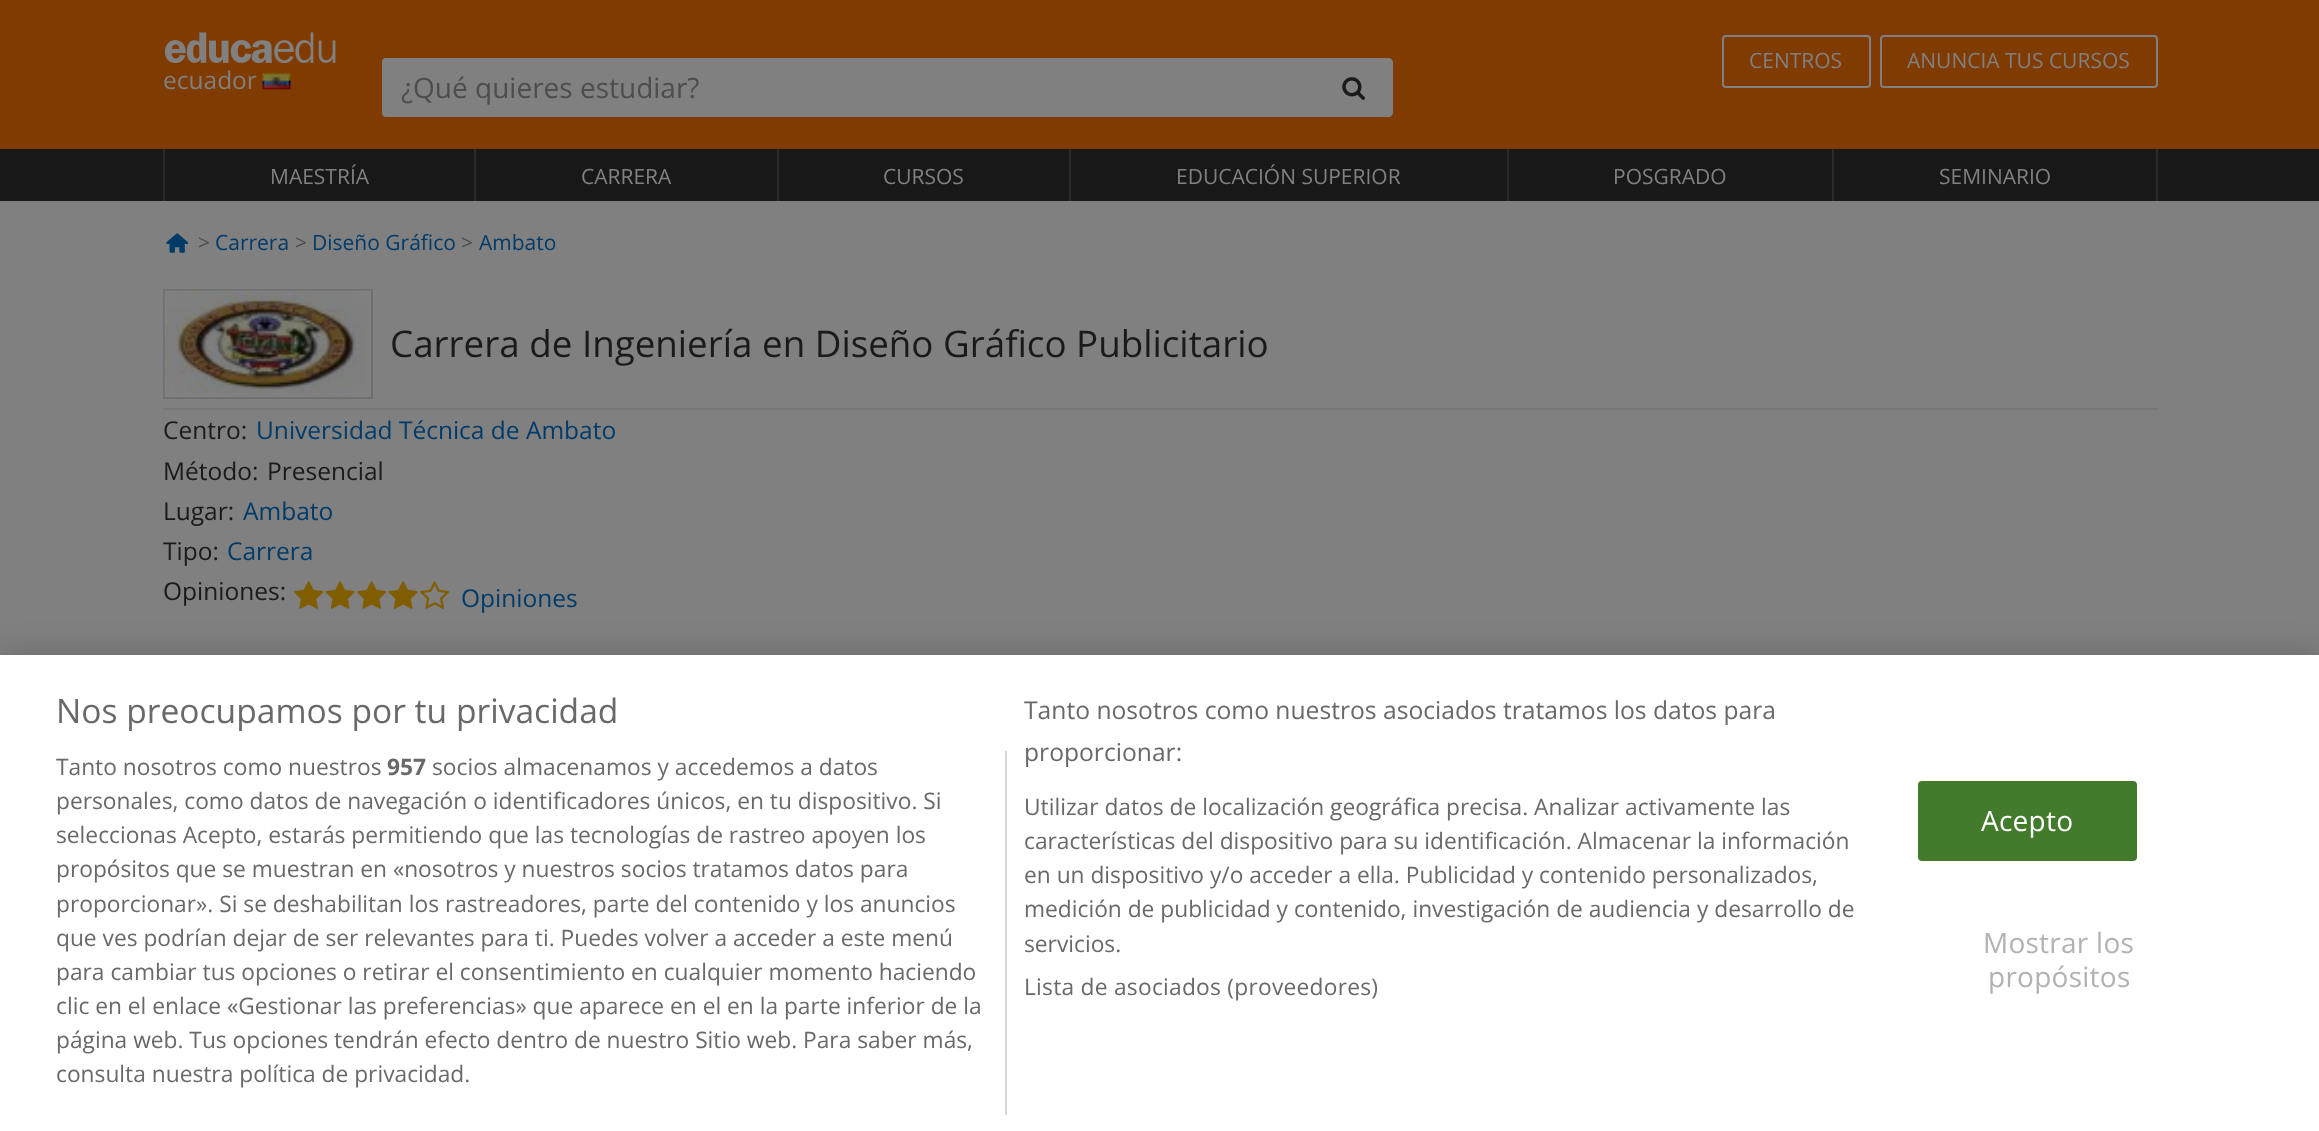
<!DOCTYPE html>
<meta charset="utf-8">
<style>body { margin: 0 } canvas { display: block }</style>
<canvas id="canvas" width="2319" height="1131"></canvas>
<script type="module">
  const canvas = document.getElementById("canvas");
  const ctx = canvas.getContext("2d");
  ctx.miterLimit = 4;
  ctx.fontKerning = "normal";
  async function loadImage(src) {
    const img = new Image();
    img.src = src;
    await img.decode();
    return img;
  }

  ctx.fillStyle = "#808080";
  ctx.fillRect(0, 0, 2319, 1131);
  ctx.fillStyle = "#803b00";
  ctx.fillRect(0, 0, 2319, 149);
  ctx.beginPath();
  ctx.roundRect(1723, 36, 147, 51, 3);
  ctx.strokeStyle = "#808080";
  ctx.lineWidth = 2;
  ctx.stroke();
  ctx.font = "21px Open Sans";
  ctx.fillStyle = "#808080";
  ctx.fillText("CENTROS", 1749, 68);
  ctx.beginPath();
  ctx.roundRect(1881, 36, 276, 51, 3);
  ctx.stroke();
  ctx.fillText("ANUNCIA TUS CURSOS", 1907, 68);
  ctx.drawImage(await loadImage("img1.png"), 165, 32, 171, 31);
  ctx.font = "24.5px Open Sans";
  ctx.fillText("ecuador", 163, 89);
  ctx.drawImage(await loadImage("img2.png"), 262, 73, 29, 17);
  ctx.beginPath();
  ctx.roundRect(383, 59, 932, 57, [3, 0, 0, 3]);
  ctx.fill();
  ctx.stroke();
  ctx.font = "28px Open Sans";
  ctx.fillStyle = "#4d4d4d";
  ctx.fillText("¿Qué quieres estudiar?", 401, 98);
  ctx.fillStyle = "#808080";
  ctx.beginPath();
  ctx.roundRect(1314, 58, 79, 59, [0, 5, 5, 0]);
  ctx.fill();
  ctx.beginPath();
  ctx.moveTo(1391, 59);
  ctx.bezierCurveTo(1391, 58, 1389, 58, 1388, 58);
  ctx.lineTo(1314, 58);
  ctx.lineTo(1316, 60);
  ctx.bezierCurveTo(1324, 60, 1388, 59, 1390, 61);
  ctx.closePath();
  ctx.fill();
  ctx.beginPath();
  ctx.moveTo(1391, 59);
  ctx.bezierCurveTo(1392, 60, 1393, 61, 1393, 63);
  ctx.lineTo(1393, 112);
  ctx.bezierCurveTo(1393, 114, 1392, 115, 1391, 116);
  ctx.lineTo(1390, 115);
  ctx.bezierCurveTo(1392, 112, 1391, 105, 1391, 104);
  ctx.lineTo(1391, 63);
  ctx.lineTo(1390, 61);
  ctx.closePath();
  ctx.fill();
  ctx.beginPath();
  ctx.moveTo(1391, 116);
  ctx.bezierCurveTo(1391, 117, 1389, 117, 1388, 117);
  ctx.lineTo(1314, 117);
  ctx.lineTo(1316, 116);
  ctx.lineTo(1388, 116);
  ctx.lineTo(1390, 115);
  ctx.closePath();
  ctx.fill();
  ctx.drawImage(await loadImage("img3.png"), 1342, 77, 23, 23);
  ctx.fillStyle = "#181818";
  ctx.fillRect(0, 149, 2319, 52);
  ctx.fillStyle = "#2a2a2a";
  ctx.fillRect(474, 149, 2, 52);
  ctx.fillRect(163, 149, 2, 52);
  ctx.font = "21px Open Sans";
  ctx.fillStyle = "#808080";
  ctx.fillText("MAESTRÍA", 270, 184);
  ctx.fillStyle = "#2a2a2a";
  ctx.fillRect(777, 149, 2, 52);
  ctx.fillStyle = "#808080";
  ctx.fillText("CARRERA", 581, 184);
  ctx.fillStyle = "#2a2a2a";
  ctx.fillRect(1069, 149, 2, 52);
  ctx.fillStyle = "#808080";
  ctx.fillText("CURSOS", 883, 184);
  ctx.fillStyle = "#2a2a2a";
  ctx.fillRect(1507, 149, 2, 52);
  ctx.fillStyle = "#808080";
  ctx.fillText("EDUCACIÓN SUPERIOR", 1176, 184);
  ctx.fillStyle = "#2a2a2a";
  ctx.fillRect(1832, 149, 2, 52);
  ctx.fillStyle = "#808080";
  ctx.fillText("POSGRADO", 1613, 184);
  ctx.fillStyle = "#2a2a2a";
  ctx.fillRect(2156, 149, 2, 52);
  ctx.fillStyle = "#808080";
  ctx.fillText("SEMINARIO", 1939, 184);
  ctx.drawImage(await loadImage("img4.png"), 166, 233, 23, 20);
  ctx.fillStyle = "#4d4d4d";
  ctx.fillText(">", 198, 250);
  ctx.fillStyle = "#003b69";
  ctx.fillText("Carrera", 215, 250);
  ctx.fillStyle = "#4d4d4d";
  ctx.fillText(">", 295, 250);
  ctx.fillStyle = "#003b69";
  ctx.fillText("Diseño Gráfico", 312, 250);
  ctx.fillStyle = "#4d4d4d";
  ctx.fillText(">", 461, 250);
  ctx.fillStyle = "#003b69";
  ctx.fillText("Ambato", 479, 250);
  ctx.fillStyle = "#777777";
  ctx.fillRect(163, 408, 1995, 2);
  ctx.strokeStyle = "#6f6f6f";
  ctx.strokeRect(164, 290, 208, 108);
  ctx.drawImage(await loadImage("img5.png"), 164, 290, 207, 108);
  ctx.font = "36.75px Open Sans";
  ctx.fillStyle = "#1a1a1a";
  ctx.fillText("Carrera de Ingeniería en Diseño Gráfico Publicitario", 390, 357);
  ctx.font = "24.5px Open Sans";
  ctx.fillText("Centro:", 163, 439);
  ctx.fillStyle = "#003b69";
  ctx.fillText("Universidad Técnica de Ambato", 256, 439);
  ctx.fillStyle = "#1a1a1a";
  ctx.fillText("Método:", 163, 480);
  ctx.fillText("Presencial", 267, 480);
  ctx.fillText("Lugar:", 163, 520);
  ctx.fillStyle = "#003b69";
  ctx.fillText("Ambato", 243, 520);
  ctx.fillStyle = "#1a1a1a";
  ctx.fillText("Tipo:", 163, 560);
  ctx.fillStyle = "#003b69";
  ctx.fillText("Carrera", 227, 560);
  ctx.fillStyle = "#1a1a1a";
  ctx.fillText("Opiniones:", 163, 600);
  ctx.drawImage(await loadImage("img6.png"), 294, 581, 30, 28);
  ctx.drawImage(await loadImage("img7.png"), 325, 581, 30, 28);
  ctx.drawImage(await loadImage("img6.png"), 357, 581, 30, 28);
  ctx.drawImage(await loadImage("img7.png"), 388, 581, 30, 28);
  ctx.drawImage(await loadImage("img8.png"), 420, 581, 30, 28);
  ctx.fillStyle = "#003b69";
  ctx.fillText("Opiniones", 461, 607);
  ctx.fillStyle = "rgba(0, 0, 0, 0.2)";
  ctx.filter = "blur(16px)";
  ctx.beginPath();
  ctx.rect(0, 655, 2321, 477);
  ctx.fill();
  ctx.filter = "none";
  ctx.fillStyle = "#ffffff";
  ctx.fillRect(0, 655, 2319, 476);
  ctx.font = "33.6px Open Sans";
  ctx.fillStyle = "#696969";
  ctx.fillText("Nos preocupamos por tu privacidad", 56, 723);
  ctx.font = "24.65px Open Sans";
  ctx.fillText("Tanto nosotros como nuestros asociados tratamos los datos para", 1024, 719);
  ctx.fillText("proporcionar:", 1024, 761);
  ctx.font = "22.75px Open Sans";
  ctx.fillText("Utilizar datos de localización geográfica precisa. Analizar activamente las", 1024, 815);
  ctx.fillText("características del dispositivo para su identificación. Almacenar la información", 1024, 849);
  ctx.fillText("en un dispositivo y/o acceder a ella. Publicidad y contenido personalizados,", 1024, 883);
  ctx.fillText("medición de publicidad y contenido, investigación de audiencia y desarrollo de", 1024, 917);
  ctx.fillText("servicios.", 1024, 952);
  ctx.letterSpacing = "0.25px";
  ctx.fillText("Lista de asociados (proveedores)", 1024, 995);
  ctx.fillStyle = "#d8d8d8";
  ctx.fillRect(1005, 751, 2, 364);
  ctx.letterSpacing = "0px";
  ctx.fillStyle = "#696969";
  ctx.fillText("Tanto nosotros como nuestros", 56, 775);
  ctx.font = "bold 22.75px Open Sans";
  ctx.fillText("957", 387, 775);
  ctx.font = "22.75px Open Sans";
  ctx.fillText("socios almacenamos y accedemos a datos", 432, 775);
  ctx.fillText("personales, como datos de navegación o identificadores únicos, en tu dispositivo. Si", 56, 809);
  ctx.fillText("seleccionas Acepto, estarás permitiendo que las tecnologías de rastreo apoyen los", 56, 843);
  ctx.fillText("propósitos que se muestran en «nosotros y nuestros socios tratamos datos para", 56, 877);
  ctx.fillText("proporcionar». Si se deshabilitan los rastreadores, parte del contenido y los anuncios", 56, 912);
  ctx.fillText("que ves podrían dejar de ser relevantes para ti. Puedes volver a acceder a este menú", 56, 946);
  ctx.fillText("para cambiar tus opciones o retirar el consentimiento en cualquier momento haciendo", 56, 980);
  ctx.fillText("clic en el enlace «Gestionar las preferencias» que aparece en el", 56, 1014);
  ctx.fillText("en la parte inferior de la", 727, 1014);
  ctx.fillText("página web. Tus opciones tendrán efecto dentro de nuestro Sitio web. Para saber más,", 56, 1048);
  ctx.fillText("consulta nuestra política de privacidad.", 56, 1082);
  ctx.fillStyle = "#437b2d";
  ctx.beginPath();
  ctx.roundRect(1919, 782, 217, 78, 3);
  ctx.fill();
  ctx.strokeStyle = "#437b2d";
  ctx.stroke();
  ctx.letterSpacing = "0.25px";
  ctx.font = "28px Open Sans";
  ctx.fillStyle = "#ffffff";
  ctx.fillText("Acepto", 1981, 831);
  ctx.fillStyle = "#b3b1b1";
  ctx.fillText("Mostrar los", 1983, 953);
  ctx.fillText("propósitos", 1988, 987);
</script>
